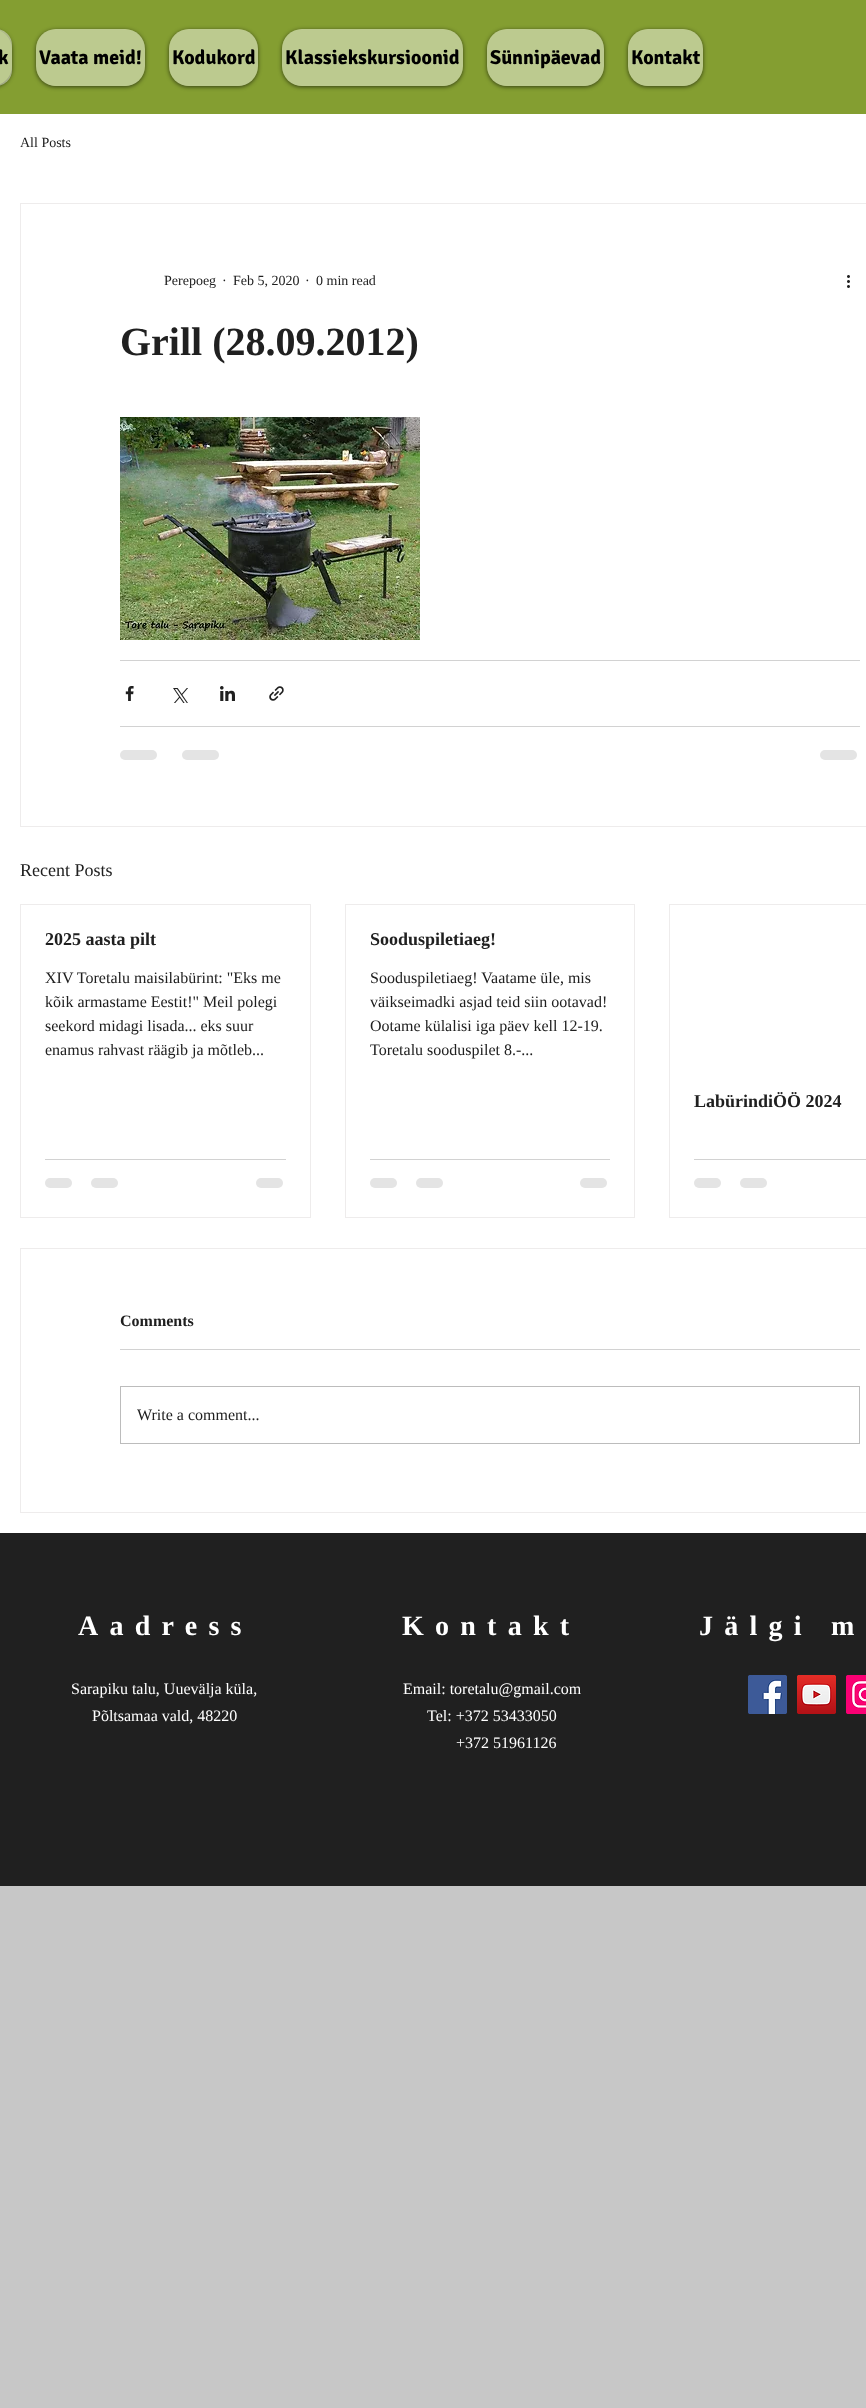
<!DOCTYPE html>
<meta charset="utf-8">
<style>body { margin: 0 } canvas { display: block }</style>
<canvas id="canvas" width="866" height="2408"></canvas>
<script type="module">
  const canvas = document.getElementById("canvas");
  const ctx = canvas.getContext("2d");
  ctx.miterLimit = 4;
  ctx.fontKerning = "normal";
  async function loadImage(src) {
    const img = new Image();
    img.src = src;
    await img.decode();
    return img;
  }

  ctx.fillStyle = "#c7c7c7";
  ctx.fillRect(0, 0, 866, 2408);
  ctx.fillStyle = "#849e31";
  ctx.fillRect(0, 0, 866, 114);
  ctx.save();
  ctx.beginPath();
  ctx.moveTo(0, 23);
  ctx.lineTo(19, 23);
  ctx.lineTo(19, 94);
  ctx.lineTo(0, 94);
  ctx.closePath();
  ctx.moveTo(-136, 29);
  ctx.lineTo(-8, 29);
  ctx.bezierCurveTo(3, 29, 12, 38, 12, 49);
  ctx.lineTo(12, 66);
  ctx.bezierCurveTo(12, 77, 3, 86, -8, 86);
  ctx.lineTo(-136, 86);
  ctx.bezierCurveTo(-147, 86, -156, 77, -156, 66);
  ctx.lineTo(-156, 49);
  ctx.bezierCurveTo(-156, 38, -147, 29, -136, 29);
  ctx.closePath();
  ctx.clip("evenodd");
  ctx.fillStyle = "rgba(0, 0, 0, 0.6)";
  ctx.filter = "blur(2px)";
  ctx.beginPath();
  ctx.roundRect(-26, 30, 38, 57, 20);
  ctx.fill();
  ctx.filter = "none";
  ctx.restore();
  ctx.fillStyle = "rgba(255, 255, 255, 0.46)";
  ctx.beginPath();
  ctx.roundRect(-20, 29, 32, 57, 20);
  ctx.fill();
  ctx.font = "bold 20px Signika";
  ctx.fillStyle = "#000000";
  ctx.fillText("k", -2, 64);
  ctx.save();
  ctx.beginPath();
  ctx.moveTo(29, 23);
  ctx.lineTo(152, 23);
  ctx.lineTo(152, 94);
  ctx.lineTo(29, 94);
  ctx.closePath();
  ctx.moveTo(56, 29);
  ctx.lineTo(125, 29);
  ctx.bezierCurveTo(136, 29, 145, 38, 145, 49);
  ctx.lineTo(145, 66);
  ctx.bezierCurveTo(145, 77, 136, 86, 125, 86);
  ctx.lineTo(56, 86);
  ctx.bezierCurveTo(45, 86, 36, 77, 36, 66);
  ctx.lineTo(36, 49);
  ctx.bezierCurveTo(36, 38, 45, 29, 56, 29);
  ctx.closePath();
  ctx.clip("evenodd");
  ctx.fillStyle = "rgba(0, 0, 0, 0.6)";
  ctx.filter = "blur(2px)";
  ctx.beginPath();
  ctx.roundRect(36, 30, 109, 57, 20);
  ctx.fill();
  ctx.filter = "none";
  ctx.restore();
  ctx.fillStyle = "rgba(255, 255, 255, 0.46)";
  ctx.beginPath();
  ctx.roundRect(36, 29, 109, 57, 20);
  ctx.fill();
  ctx.fillStyle = "#000000";
  ctx.fillText("Vaata meid!", 39, 64);
  ctx.save();
  ctx.beginPath();
  ctx.moveTo(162, 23);
  ctx.lineTo(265, 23);
  ctx.lineTo(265, 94);
  ctx.lineTo(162, 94);
  ctx.closePath();
  ctx.moveTo(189, 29);
  ctx.lineTo(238, 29);
  ctx.bezierCurveTo(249, 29, 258, 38, 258, 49);
  ctx.lineTo(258, 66);
  ctx.bezierCurveTo(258, 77, 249, 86, 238, 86);
  ctx.lineTo(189, 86);
  ctx.bezierCurveTo(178, 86, 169, 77, 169, 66);
  ctx.lineTo(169, 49);
  ctx.bezierCurveTo(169, 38, 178, 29, 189, 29);
  ctx.closePath();
  ctx.clip("evenodd");
  ctx.fillStyle = "rgba(0, 0, 0, 0.6)";
  ctx.filter = "blur(2px)";
  ctx.beginPath();
  ctx.roundRect(169, 30, 89, 57, 20);
  ctx.fill();
  ctx.filter = "none";
  ctx.restore();
  ctx.fillStyle = "rgba(255, 255, 255, 0.46)";
  ctx.beginPath();
  ctx.roundRect(169, 29, 89, 57, 20);
  ctx.fill();
  ctx.fillStyle = "#000000";
  ctx.fillText("Kodukord", 172, 64);
  ctx.save();
  ctx.beginPath();
  ctx.moveTo(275, 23);
  ctx.lineTo(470, 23);
  ctx.lineTo(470, 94);
  ctx.lineTo(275, 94);
  ctx.closePath();
  ctx.moveTo(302, 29);
  ctx.lineTo(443, 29);
  ctx.bezierCurveTo(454, 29, 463, 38, 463, 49);
  ctx.lineTo(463, 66);
  ctx.bezierCurveTo(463, 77, 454, 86, 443, 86);
  ctx.lineTo(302, 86);
  ctx.bezierCurveTo(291, 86, 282, 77, 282, 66);
  ctx.lineTo(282, 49);
  ctx.bezierCurveTo(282, 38, 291, 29, 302, 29);
  ctx.closePath();
  ctx.clip("evenodd");
  ctx.fillStyle = "rgba(0, 0, 0, 0.6)";
  ctx.filter = "blur(2px)";
  ctx.beginPath();
  ctx.roundRect(282, 30, 181, 57, 20);
  ctx.fill();
  ctx.filter = "none";
  ctx.restore();
  ctx.fillStyle = "rgba(255, 255, 255, 0.46)";
  ctx.beginPath();
  ctx.roundRect(282, 29, 181, 57, 20);
  ctx.fill();
  ctx.fillStyle = "#000000";
  ctx.fillText("Klassiekskursioonid", 285, 64);
  ctx.save();
  ctx.beginPath();
  ctx.moveTo(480, 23);
  ctx.lineTo(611, 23);
  ctx.lineTo(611, 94);
  ctx.lineTo(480, 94);
  ctx.closePath();
  ctx.moveTo(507, 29);
  ctx.lineTo(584, 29);
  ctx.bezierCurveTo(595, 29, 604, 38, 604, 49);
  ctx.lineTo(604, 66);
  ctx.bezierCurveTo(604, 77, 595, 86, 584, 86);
  ctx.lineTo(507, 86);
  ctx.bezierCurveTo(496, 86, 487, 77, 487, 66);
  ctx.lineTo(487, 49);
  ctx.bezierCurveTo(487, 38, 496, 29, 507, 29);
  ctx.closePath();
  ctx.clip("evenodd");
  ctx.fillStyle = "rgba(0, 0, 0, 0.6)";
  ctx.filter = "blur(2px)";
  ctx.beginPath();
  ctx.roundRect(487, 30, 117, 57, 20);
  ctx.fill();
  ctx.filter = "none";
  ctx.restore();
  ctx.fillStyle = "rgba(255, 255, 255, 0.46)";
  ctx.beginPath();
  ctx.roundRect(487, 29, 117, 57, 20);
  ctx.fill();
  ctx.fillStyle = "#000000";
  ctx.fillText("Sünnipäevad", 490, 64);
  ctx.save();
  ctx.beginPath();
  ctx.moveTo(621, 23);
  ctx.lineTo(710, 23);
  ctx.lineTo(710, 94);
  ctx.lineTo(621, 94);
  ctx.closePath();
  ctx.moveTo(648, 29);
  ctx.lineTo(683, 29);
  ctx.bezierCurveTo(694, 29, 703, 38, 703, 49);
  ctx.lineTo(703, 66);
  ctx.bezierCurveTo(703, 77, 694, 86, 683, 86);
  ctx.lineTo(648, 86);
  ctx.bezierCurveTo(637, 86, 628, 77, 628, 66);
  ctx.lineTo(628, 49);
  ctx.bezierCurveTo(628, 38, 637, 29, 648, 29);
  ctx.closePath();
  ctx.clip("evenodd");
  ctx.fillStyle = "rgba(0, 0, 0, 0.6)";
  ctx.filter = "blur(2px)";
  ctx.beginPath();
  ctx.roundRect(628, 30, 75, 57, 20);
  ctx.fill();
  ctx.filter = "none";
  ctx.restore();
  ctx.fillStyle = "rgba(255, 255, 255, 0.46)";
  ctx.beginPath();
  ctx.roundRect(628, 29, 75, 57, 20);
  ctx.fill();
  ctx.fillStyle = "#000000";
  ctx.fillText("Kontakt", 631, 64);
  ctx.fillStyle = "#ffffff";
  ctx.fillRect(0, 114, 866, 1419);
  ctx.font = "14px Liberation Serif";
  ctx.fillStyle = "#202020";
  ctx.fillText("All Posts", 20, 147);
  ctx.strokeStyle = "#eeecec";
  ctx.strokeRect(20.5, 203.5, 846, 623);
  ctx.fillText("Perepoeg", 164, 285);
  ctx.fillText("·", 222, 285);
  ctx.fillText("Feb 5, 2020", 233, 285);
  ctx.fillText("·", 305, 285);
  ctx.fillText("0 min read", 316, 285);
  ctx.drawImage(await loadImage("img1.png"), 847, 275, 3, 13);
  ctx.font = "bold 40px Liberation Serif";
  ctx.fillText("Grill (28.09.2012)", 120, 355);
  ctx.drawImage(await loadImage("img2.png"), 120, 417, 300, 223);
  ctx.fillStyle = "#d2d2d2";
  ctx.fillRect(120, 660, 740, 1);
  ctx.drawImage(await loadImage("img3.png"), 125, 686, 9, 15);
  ctx.drawImage(await loadImage("img4.png"), 173, 688, 15, 15);
  ctx.drawImage(await loadImage("img5.png"), 220, 686, 15, 15);
  ctx.drawImage(await loadImage("img6.png"), 269, 686, 15, 15);
  ctx.fillRect(120, 726, 740, 1);
  ctx.fillStyle = "#e4e4e4";
  ctx.beginPath();
  ctx.roundRect(120, 750, 37, 10, 5);
  ctx.fill();
  ctx.beginPath();
  ctx.roundRect(182, 750, 37, 10, 5);
  ctx.fill();
  ctx.beginPath();
  ctx.roundRect(820, 750, 37, 10, 5);
  ctx.fill();
  ctx.font = "18px Liberation Serif";
  ctx.fillStyle = "#202020";
  ctx.fillText("Recent Posts", 20, 876);
  ctx.strokeRect(20.5, 904.5, 290, 313);
  ctx.font = "bold 18px Liberation Serif";
  ctx.fillText("2025 aasta pilt", 45, 945);
  ctx.font = "16px Liberation Serif";
  ctx.fillText("XIV Toretalu maisilabürint: \"Eks me", 45, 983);
  ctx.fillText("kõik armastame Eestit!\" Meil polegi", 45, 1007);
  ctx.fillText("seekord midagi lisada... eks suur", 45, 1031);
  ctx.fillText("enamus rahvast räägib ja mõtleb...", 45, 1055);
  ctx.fillStyle = "#d2d2d2";
  ctx.fillRect(45, 1159, 241, 1);
  ctx.fillStyle = "#e4e4e4";
  ctx.beginPath();
  ctx.roundRect(45, 1178, 27, 10, 5);
  ctx.fill();
  ctx.beginPath();
  ctx.roundRect(91, 1178, 27, 10, 5);
  ctx.fill();
  ctx.beginPath();
  ctx.roundRect(256, 1178, 27, 10, 5);
  ctx.fill();
  ctx.strokeRect(345.5, 904.5, 289, 313);
  ctx.font = "bold 18px Liberation Serif";
  ctx.fillStyle = "#202020";
  ctx.fillText("Sooduspiletiaeg!", 370, 945);
  ctx.font = "16px Liberation Serif";
  ctx.fillText("Sooduspiletiaeg! Vaatame üle, mis", 370, 983);
  ctx.fillText("väikseimadki asjad teid siin ootavad!", 370, 1007);
  ctx.fillText("Ootame külalisi iga päev kell 12-19.", 370, 1031);
  ctx.fillText("Toretalu sooduspilet 8.-...", 370, 1055);
  ctx.fillStyle = "#d2d2d2";
  ctx.fillRect(370, 1159, 240, 1);
  ctx.fillStyle = "#e4e4e4";
  ctx.beginPath();
  ctx.roundRect(370, 1178, 27, 10, 5);
  ctx.fill();
  ctx.beginPath();
  ctx.roundRect(416, 1178, 27, 10, 5);
  ctx.fill();
  ctx.beginPath();
  ctx.roundRect(580, 1178, 27, 10, 5);
  ctx.fill();
  ctx.strokeRect(669.5, 904.5, 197, 313);
  ctx.font = "bold 18px Liberation Serif";
  ctx.fillStyle = "#202020";
  ctx.fillText("LabürindiÖÖ 2024", 694, 1107);
  ctx.fillStyle = "#d2d2d2";
  ctx.fillRect(694, 1159, 172, 1);
  ctx.fillStyle = "#e4e4e4";
  ctx.beginPath();
  ctx.roundRect(694, 1178, 27, 10, 5);
  ctx.fill();
  ctx.beginPath();
  ctx.roundRect(740, 1178, 27, 10, 5);
  ctx.fill();
  ctx.strokeRect(20.5, 1248.5, 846, 264);
  ctx.font = "bold 16px Liberation Serif";
  ctx.fillStyle = "#202020";
  ctx.fillText("Comments", 120, 1326);
  ctx.fillStyle = "#d2d2d2";
  ctx.fillRect(120, 1349, 740, 1);
  ctx.strokeStyle = "#bcbcbc";
  ctx.strokeRect(120.5, 1386.5, 739, 57);
  ctx.font = "16px Liberation Serif";
  ctx.fillStyle = "#202020";
  ctx.fillText("Write a comment...", 137, 1420);
  ctx.fillRect(0, 1533, 866, 353);
  ctx.letterSpacing = "11.25px";
  ctx.font = "bold 28px Liberation Serif";
  ctx.fillStyle = "#ffffff";
  ctx.fillText("Aadress", 78, 1635);
  ctx.letterSpacing = "0px";
  ctx.font = "16px Liberation Serif";
  ctx.fillText("Sarapiku talu, Uuevälja küla,", 71, 1694);
  ctx.fillText("Põltsamaa vald, 48220", 92, 1721);
  ctx.letterSpacing = "11.25px";
  ctx.font = "bold 28px Liberation Serif";
  ctx.fillText("Kontakt", 402, 1635);
  ctx.letterSpacing = "0px";
  ctx.font = "16px Liberation Serif";
  ctx.fillText("Email: toretalu@gmail.com", 403, 1694);
  ctx.fillText("Tel: +372 53433050", 427, 1721);
  ctx.fillText("+372 51961126", 456, 1748);
  ctx.letterSpacing = "11.25px";
  ctx.font = "bold 28px Liberation Serif";
  ctx.fillText("Jälgi m", 699, 1635);
  ctx.drawImage(await loadImage("img7.png"), 748, 1675, 39, 39);
  ctx.drawImage(await loadImage("img8.png"), 797, 1675, 39, 39);
  ctx.drawImage(await loadImage("img9.png"), 846, 1675, 20, 39);
</script>
